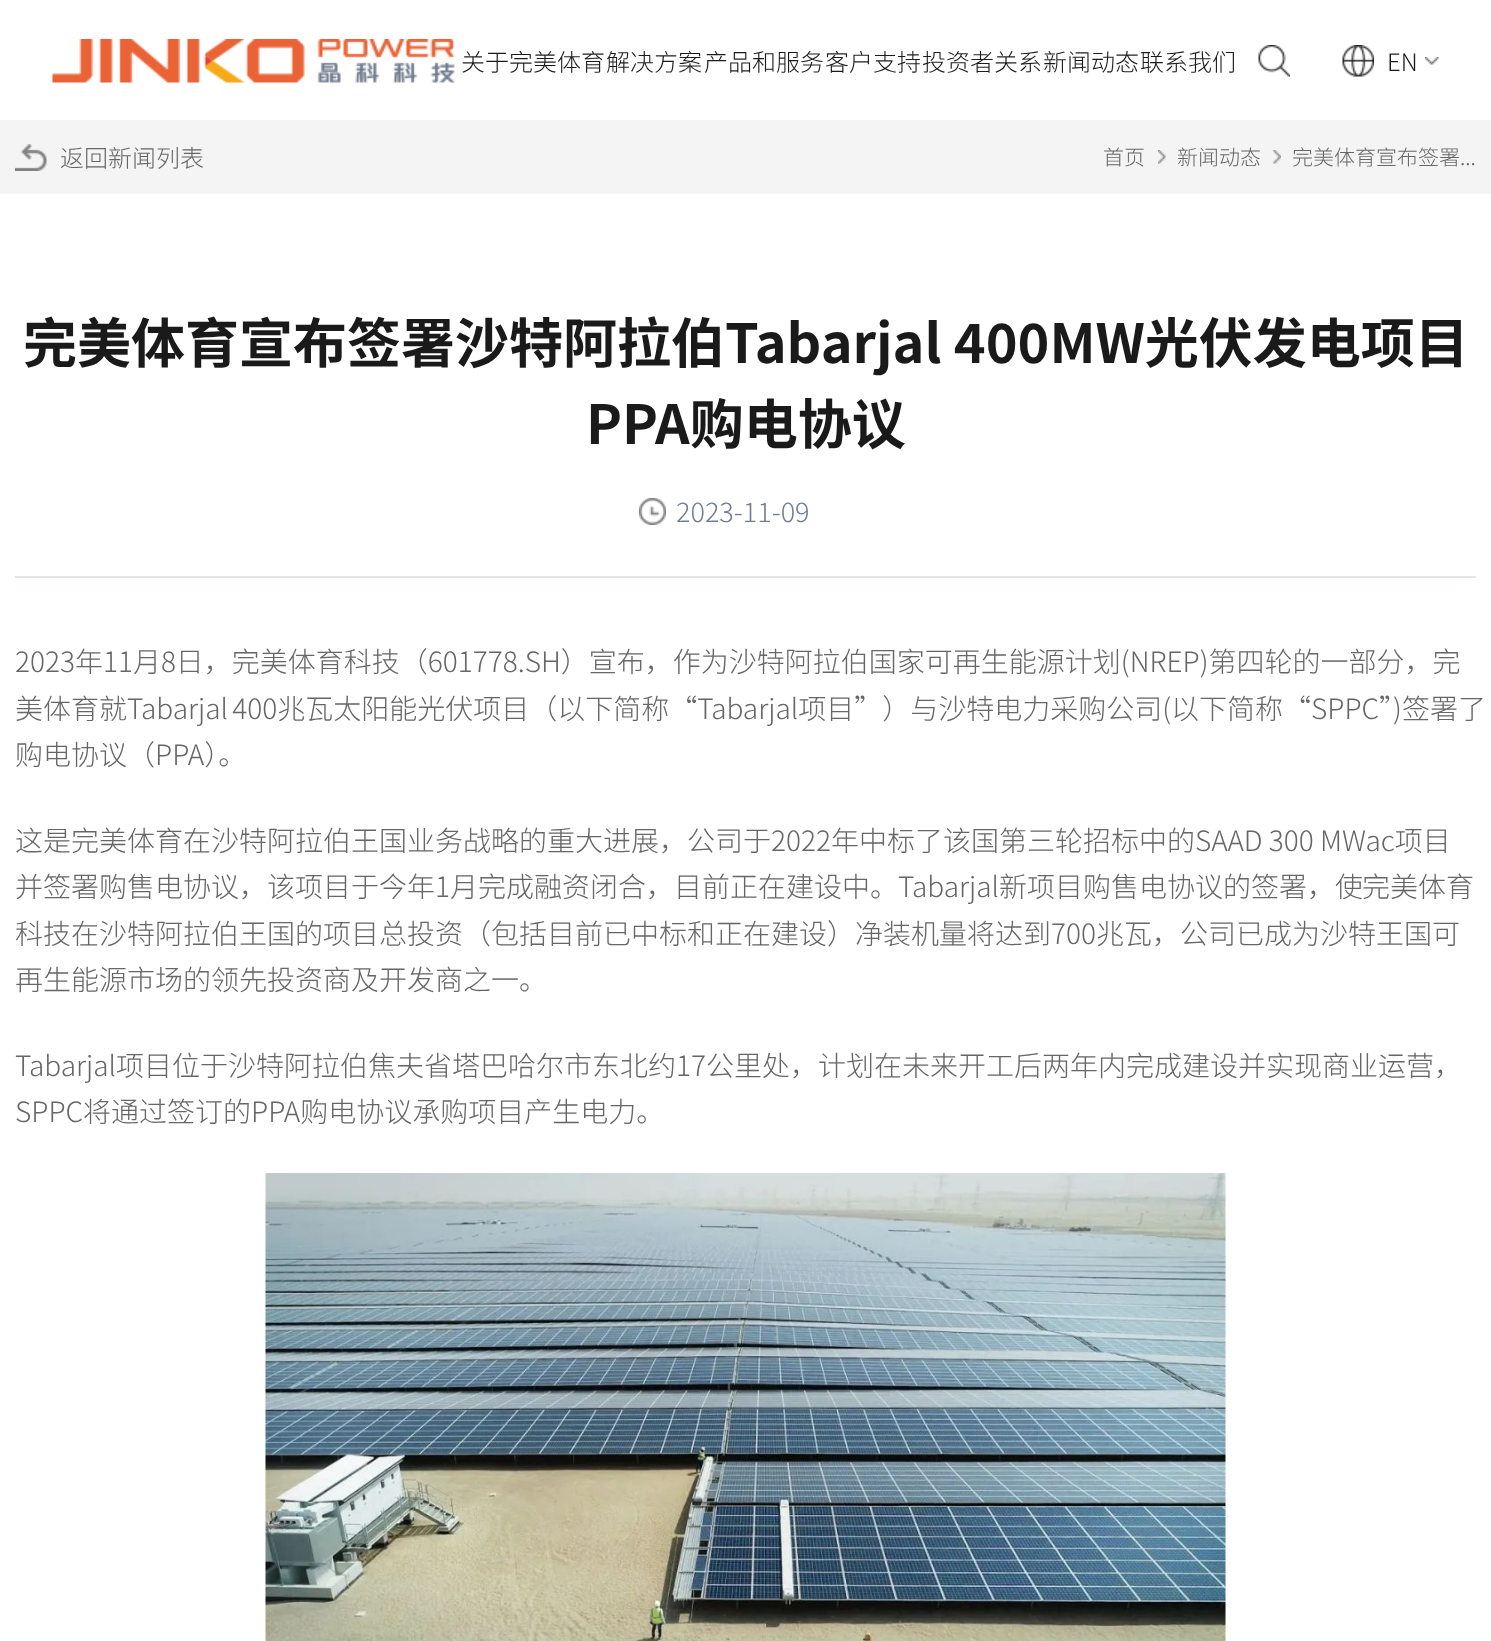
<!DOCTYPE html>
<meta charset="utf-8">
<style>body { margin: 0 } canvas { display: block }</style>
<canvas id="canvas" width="1491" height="1641"></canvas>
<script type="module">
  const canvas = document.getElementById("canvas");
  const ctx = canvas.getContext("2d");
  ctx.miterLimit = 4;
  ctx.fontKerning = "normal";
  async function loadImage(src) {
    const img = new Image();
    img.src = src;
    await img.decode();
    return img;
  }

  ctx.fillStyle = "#ffffff";
  ctx.fillRect(0, 0, 1491, 1641);
  ctx.drawImage(await loadImage("img1.png"), 52, 39, 403, 44);
  ctx.font = "300 24px Noto Sans CJK SC";
  ctx.fillStyle = "#1a1a1a";
  ctx.fillText("关于完美体育", 461, 71);
  ctx.fillText("解决方案", 606, 71);
  ctx.fillText("产品和服务", 704, 71);
  ctx.fillText("客户支持", 825, 71);
  ctx.fillText("投资者关系", 922, 71);
  ctx.fillText("新闻动态", 1043, 71);
  ctx.fillText("联系我们", 1140, 71);
  ctx.drawImage(await loadImage("img2.png"), 1258, 45, 32, 32);
  ctx.drawImage(await loadImage("img3.png"), 1342, 45, 32, 32);
  ctx.drawImage(await loadImage("img4.png"), 1425, 57, 14, 8);
  ctx.fillText("EN", 1387, 71);
  ctx.fillStyle = "#f4f4f4";
  ctx.fillRect(0, 120, 1491, 74);
  ctx.drawImage(await loadImage("img5.png"), 15, 144, 32, 27);
  ctx.fillStyle = "#666666";
  ctx.fillText("返回新闻列表", 60, 167);
  ctx.drawImage(await loadImage("img6.png"), 1158, 150, 8, 14);
  ctx.font = "300 21px Noto Sans CJK SC";
  ctx.fillText("首页", 1103, 165);
  ctx.drawImage(await loadImage("img7.png"), 1273, 150, 8, 14);
  ctx.fillText("新闻动态", 1177, 165);
  ctx.fillText("完美体育宣布签署...", 1292, 165);
  ctx.font = "bold 54px Noto Sans CJK SC";
  ctx.fillStyle = "#1a1a1a";
  ctx.fillText("完美体育宣布签署沙特阿拉伯Tabarjal 400MW光伏发电项目", 23, 363);
  ctx.fillText("PPA购电协议", 586, 444);
  ctx.drawImage(await loadImage("img8.png"), 639, 498, 27, 27);
  ctx.font = "300 27px Noto Sans CJK SC";
  ctx.fillStyle = "#707d8f";
  ctx.fillText("2023-11-09", 676, 522);
  ctx.fillStyle = "#e2e5e9";
  ctx.fillRect(15, 576, 1461, 2);
  ctx.font = "300 28px Noto Sans CJK SC";
  ctx.fillStyle = "#666666";
  ctx.fillText("2023年11月8日，完美体育科技（601778.SH）宣布，作为沙特阿拉伯国家可再生能源计划(NREP)第四轮的一部分，完", 15, 672);
  ctx.wordSpacing = "-2px";
  ctx.fillText("美体育就Tabarjal 400兆瓦太阳能光伏项目（以下简称“Tabarjal项目”）与沙特电力采购公司(以下简称“SPPC”)签署了", 15, 719);
  ctx.wordSpacing = "0px";
  ctx.fillText("购电协议（PPA）。", 15, 765);
  ctx.fillText("这是完美体育在沙特阿拉伯王国业务战略的重大进展，公司于2022年中标了该国第三轮招标中的SAAD 300 MWac项目", 15, 851);
  ctx.fillText("并签署购售电协议，该项目于今年1月完成融资闭合，目前正在建设中。Tabarjal新项目购售电协议的签署，使", 15, 897);
  ctx.fillText("完美体育", 1362, 897);
  ctx.fillText("科技在沙特阿拉伯王国的项目总投资（包括目前已中标和正在建设）净装机量将达到700兆瓦，公司已成为沙特王国可", 15, 944);
  ctx.fillText("再生能源市场的领先投资商及开发商之一。", 15, 990);
  ctx.fillText("Tabarjal项目位于沙特阿拉伯焦夫省塔巴哈尔市东北约17公里处，计划在未来开工后两年内完成建设并实现商业运营，", 15, 1076);
  ctx.fillText("SPPC将通过签订的PPA购电协议承购项目产生电力。", 15, 1122);
  ctx.drawImage(await loadImage("img9.png"), 265, 1173, 961, 468);
</script>
